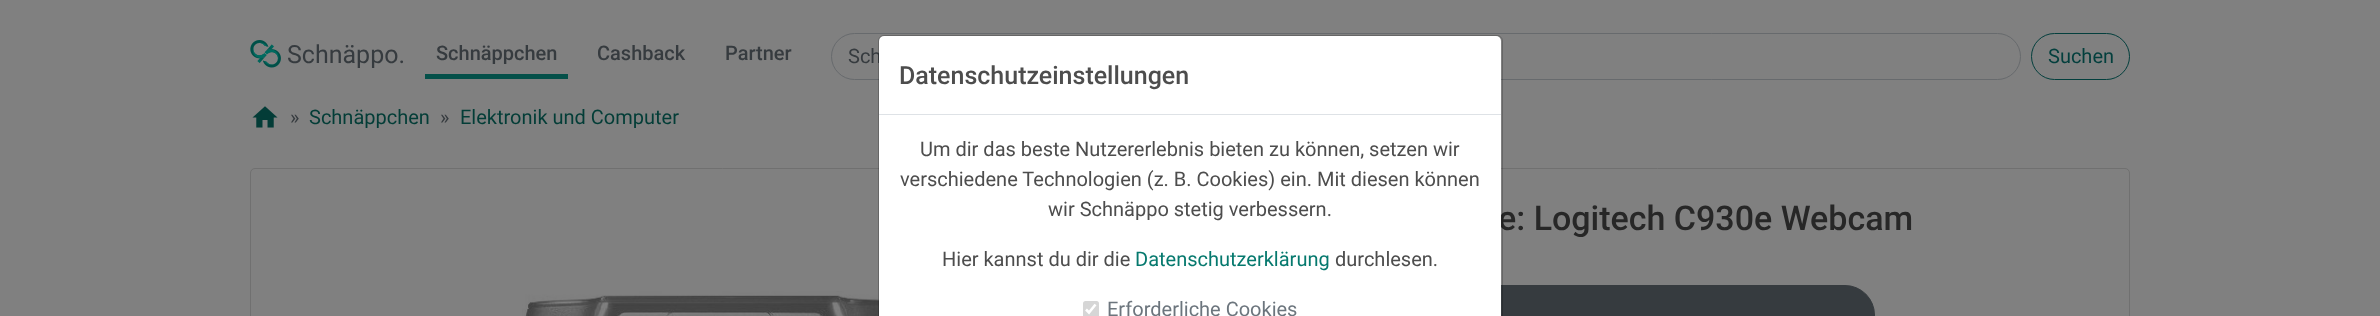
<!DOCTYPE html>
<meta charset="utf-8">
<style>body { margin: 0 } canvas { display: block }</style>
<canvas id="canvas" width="2380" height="316"></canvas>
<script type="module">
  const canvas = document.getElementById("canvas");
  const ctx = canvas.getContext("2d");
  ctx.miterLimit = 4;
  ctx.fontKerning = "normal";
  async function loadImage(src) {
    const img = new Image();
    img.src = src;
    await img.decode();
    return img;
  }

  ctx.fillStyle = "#808080";
  ctx.fillRect(0, 0, 2380, 316);
  ctx.drawImage(await loadImage("img1.png"), 250, 40, 31, 28);
  ctx.font = "25px Roboto";
  ctx.fillStyle = "#363b3f";
  ctx.fillText("Schnäppo.", 287, 63);
  ctx.fillStyle = "#045049";
  ctx.fillRect(425, 74, 143, 5);
  ctx.font = "500 20px Roboto";
  ctx.fillStyle = "#363b3f";
  ctx.fillText("Schnäppchen", 436, 60);
  ctx.fillText("Cashback", 597, 60);
  ctx.fillText("Partner", 725, 60);
  ctx.beginPath();
  ctx.roundRect(831.5, 33.5, 1189, 46, 23);
  ctx.strokeStyle = "#676a6d";
  ctx.stroke();
  ctx.font = "20px Roboto";
  ctx.fillText("Sch", 848, 63);
  ctx.beginPath();
  ctx.roundRect(2031.5, 33.5, 98, 46, 23);
  ctx.strokeStyle = "#033f3d";
  ctx.stroke();
  ctx.fillStyle = "#033f3d";
  ctx.fillText("Suchen", 2048, 63);
  ctx.drawImage(await loadImage("img2.png"), 252, 106, 26, 22);
  ctx.fillStyle = "#363b3f";
  ctx.fillText("»", 290, 124);
  ctx.fillStyle = "#033d37";
  ctx.fillText("Schnäppchen", 309, 124);
  ctx.fillStyle = "#363b3f";
  ctx.fillText("»", 440, 124);
  ctx.fillStyle = "#033d37";
  ctx.fillText("Elektronik und Computer", 460, 124);
  ctx.beginPath();
  ctx.roundRect(250.5, 168.5, 1879, 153, 4.5);
  ctx.strokeStyle = "#707070";
  ctx.stroke();
  ctx.font = "500 34px Roboto";
  ctx.fillStyle = "#272727";
  ctx.fillText("e: Logitech C930e Webcam", 1498, 230);
  ctx.fillStyle = "#363b3f";
  ctx.beginPath();
  ctx.roundRect(1444.5, 285.5, 430, 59, 29.5);
  ctx.fill();
  ctx.strokeStyle = "#363b3f";
  ctx.stroke();
  ctx.drawImage(await loadImage("img3.png"), 522, 291, 357, 25);
  ctx.fillStyle = "#ffffff";
  ctx.beginPath();
  ctx.roundRect(879, 36, 622, 280, [5, 5, 0, 0]);
  ctx.fill();
  ctx.beginPath();
  ctx.roundRect(878.5, 35.5, 624, 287, 5.5);
  ctx.strokeStyle = "rgba(0, 0, 0, 0.2)";
  ctx.stroke();
  ctx.fillStyle = "#dee2e6";
  ctx.fillRect(879, 114, 622, 1);
  ctx.font = "500 25px Roboto";
  ctx.fillStyle = "#4d4d4d";
  ctx.fillText("Datenschutzeinstellungen", 899, 84);
  ctx.font = "20px Roboto";
  ctx.fillText("Um dir das beste Nutzererlebnis bieten zu können, setzen wir", 920, 156);
  ctx.fillText("verschiedene Technologien (z. B. Cookies) ein. Mit diesen können", 900, 186);
  ctx.fillText("wir Schnäppo stetig verbessern.", 1048, 216);
  ctx.fillText("Hier kannst du dir die", 942, 266);
  ctx.fillStyle = "#06796e";
  ctx.fillText("Datenschutzerklärung", 1135, 266);
  ctx.fillStyle = "#4d4d4d";
  ctx.fillText("durchlesen.", 1335, 266);
  ctx.fillStyle = "#d6d6d6";
  ctx.beginPath();
  ctx.roundRect(1083, 301, 16, 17, 2.5);
  ctx.fill();
  ctx.beginPath();
  ctx.moveTo(1086, 309.5);
  ctx.lineTo(1089, 312.5);
  ctx.lineTo(1095.5, 304.5);
  ctx.strokeStyle = "#ffffff";
  ctx.lineWidth = 2.6;
  ctx.stroke();
  ctx.fillStyle = "#6c757d";
  ctx.fillText("Erforderliche Cookies", 1107, 316);
</script>
